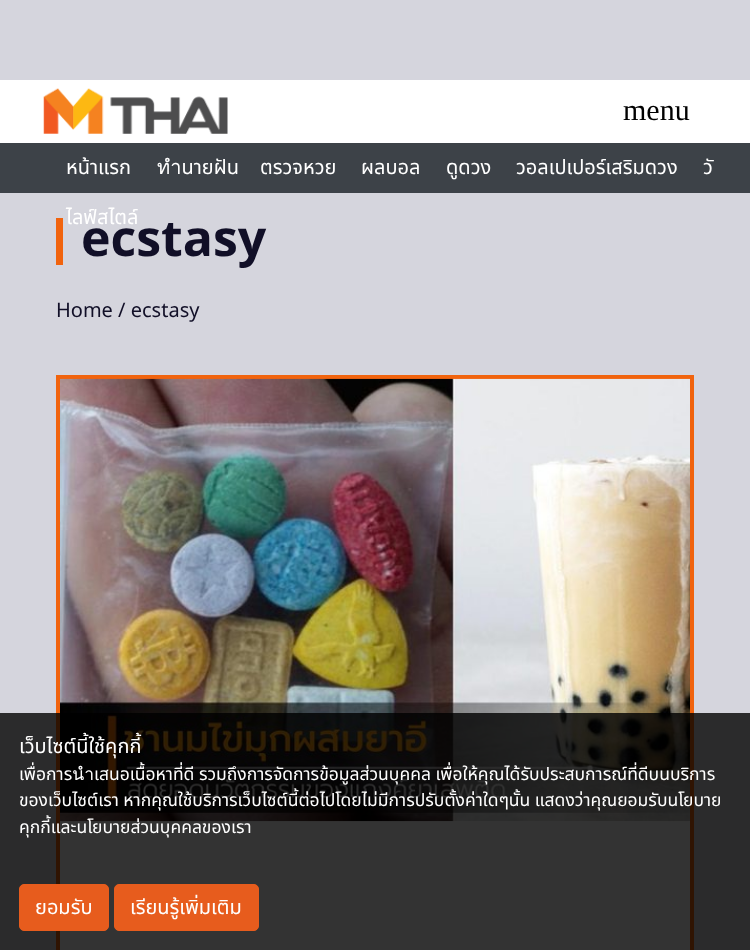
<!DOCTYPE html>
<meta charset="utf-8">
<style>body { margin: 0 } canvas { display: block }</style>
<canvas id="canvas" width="750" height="950"></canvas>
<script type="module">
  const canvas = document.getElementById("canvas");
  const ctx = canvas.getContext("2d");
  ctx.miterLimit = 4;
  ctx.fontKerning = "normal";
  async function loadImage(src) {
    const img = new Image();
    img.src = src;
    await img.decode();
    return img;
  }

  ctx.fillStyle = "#ffffff";
  ctx.fillRect(0, 0, 750, 950);
  ctx.fillStyle = "#d5d5dd";
  ctx.fillRect(0, 0, 750, 80);
  ctx.drawImage(await loadImage("img1.png"), 43, 88, 185, 46);
  ctx.font = "30px Liberation Serif";
  ctx.fillStyle = "#000000";
  ctx.fillText("menu", 623, 120);
  ctx.fillStyle = "#3d4248";
  ctx.fillRect(0, 143, 750, 50);
  ctx.font = "20px Noto Sans Thai";
  ctx.fillStyle = "#ffffff";
  ctx.fillText("หน้าแรก", 66, 174);
  ctx.fillText("ทำนายฝัน", 157, 174);
  ctx.fillText("ตรวจหวย", 260, 174);
  ctx.fillText("ผลบอล", 361, 174);
  ctx.fillText("ดูดวง", 446, 174);
  ctx.fillText("วอลเปเปอร์เสริมดวง", 516, 174);
  ctx.fillText("วั", 703, 174);
  ctx.fillStyle = "#d5d5dd";
  ctx.fillRect(0, 193, 750, 757);
  ctx.fillStyle = "#ffffff";
  ctx.fillText("ไลฟ์สไตล์", 66, 224);
  ctx.fillStyle = "#f1630d";
  ctx.fillRect(56, 218, 7, 47);
  ctx.font = "bold 50px Noto Sans Thai";
  ctx.fillStyle = "#110f27";
  ctx.fillText("ecstasy", 81, 256);
  ctx.font = "20px Noto Sans Thai";
  ctx.fillText("Home / ecstasy", 56, 317);
  ctx.fillStyle = "#ffffff";
  ctx.fillRect(60, 821, 630, 129);
  ctx.strokeStyle = "#f1630d";
  ctx.lineWidth = 4;
  ctx.strokeRect(58, 377, 634, 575);
  ctx.drawImage(await loadImage("img2.png"), 60, 378, 630, 444);
  ctx.fillStyle = "rgba(0, 0, 0, 0.8)";
  ctx.fillRect(0, 713, 750, 237);
  ctx.fillStyle = "#ffffff";
  ctx.fillText("เว็บไซต์นี้ใช้คุกกี้", 19, 753);
  ctx.font = "17.5px Noto Sans Thai";
  ctx.fillText("เพื่อการนำเสนอเนื้อหาที่ดี รวมถึงการจัดการข้อมูลส่วนบุคคล เพื่อให้คุณได้รับประสบการณ์ที่ดีบนบริการ", 19, 780);
  ctx.fillText("ของเว็บไซต์เรา หากคุณใช้บริการเว็บไซต์นี้ต่อไปโดยไม่มีการปรับตั้งค่าใดๆนั้น แสดงว่าคุณยอมรับนโยบาย", 19, 806);
  ctx.fillText("คุกกี้และนโยบายส่วนบุคคลของเรา", 19, 833);
  ctx.fillStyle = "#e75c1d";
  ctx.beginPath();
  ctx.roundRect(19.5, 884.5, 89, 46, 4.5);
  ctx.fill();
  ctx.strokeStyle = "#e75c1d";
  ctx.lineWidth = 1;
  ctx.stroke();
  ctx.font = "20px Noto Sans Thai";
  ctx.fillStyle = "#ffffff";
  ctx.fillText("ยอมรับ", 35, 914);
  ctx.fillStyle = "#e75c1d";
  ctx.beginPath();
  ctx.roundRect(114.5, 884.5, 144, 46, 4.5);
  ctx.fill();
  ctx.stroke();
  ctx.fillStyle = "#ffffff";
  ctx.fillText("เรียนรู้เพิ่มเติม", 130, 914);
</script>
